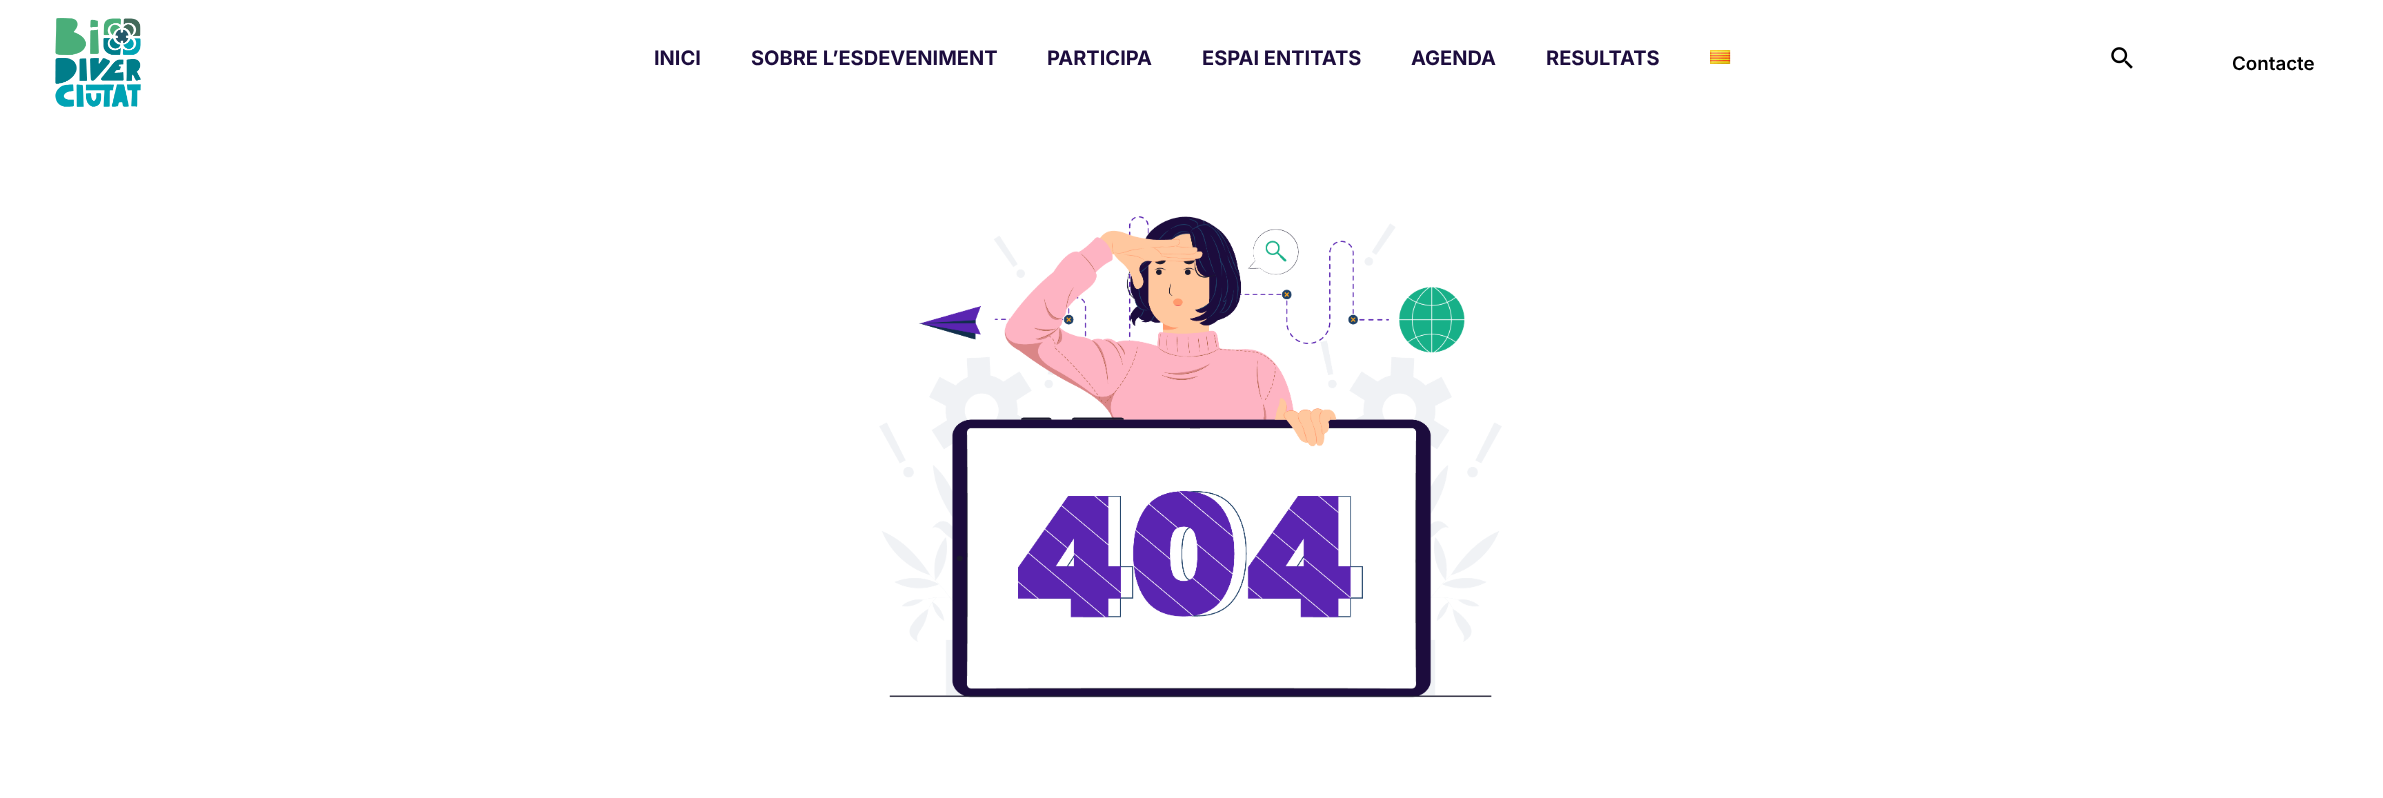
<!DOCTYPE html>
<meta charset="utf-8">
<style>body { margin: 0 } canvas { display: block }</style>
<canvas id="canvas" width="2383" height="798"></canvas>
<script type="module">
  const canvas = document.getElementById("canvas");
  const ctx = canvas.getContext("2d");
  ctx.miterLimit = 4;
  ctx.fontKerning = "normal";
  async function loadImage(src) {
    const img = new Image();
    img.src = src;
    await img.decode();
    return img;
  }

  ctx.fillStyle = "#ffffff";
  ctx.fillRect(0, 0, 2383, 798);
  ctx.drawImage(await loadImage("img1.png"), 55, 18, 86, 89);
  ctx.font = "bold 20px Inter";
  ctx.fillStyle = "#1c0c3d";
  ctx.fillText("INICI", 654, 65);
  ctx.fillText("SOBRE L’ESDEVENIMENT", 751, 65);
  ctx.fillText("PARTICIPA", 1047, 65);
  ctx.fillText("ESPAI ENTITATS", 1202, 65);
  ctx.fillText("AGENDA", 1411, 65);
  ctx.fillText("RESULTATS", 1546, 65);
  ctx.drawImage(await loadImage("img2.png"), 1710, 50, 21, 14);
  ctx.drawImage(await loadImage("img3.png"), 2111, 47, 22, 22);
  ctx.font = "600 18.75px Inter";
  ctx.fillStyle = "#000000";
  ctx.fillText("Contacte", 2232, 70);
  ctx.drawImage(await loadImage("img4.png"), 879, 216, 623, 482);
</script>
